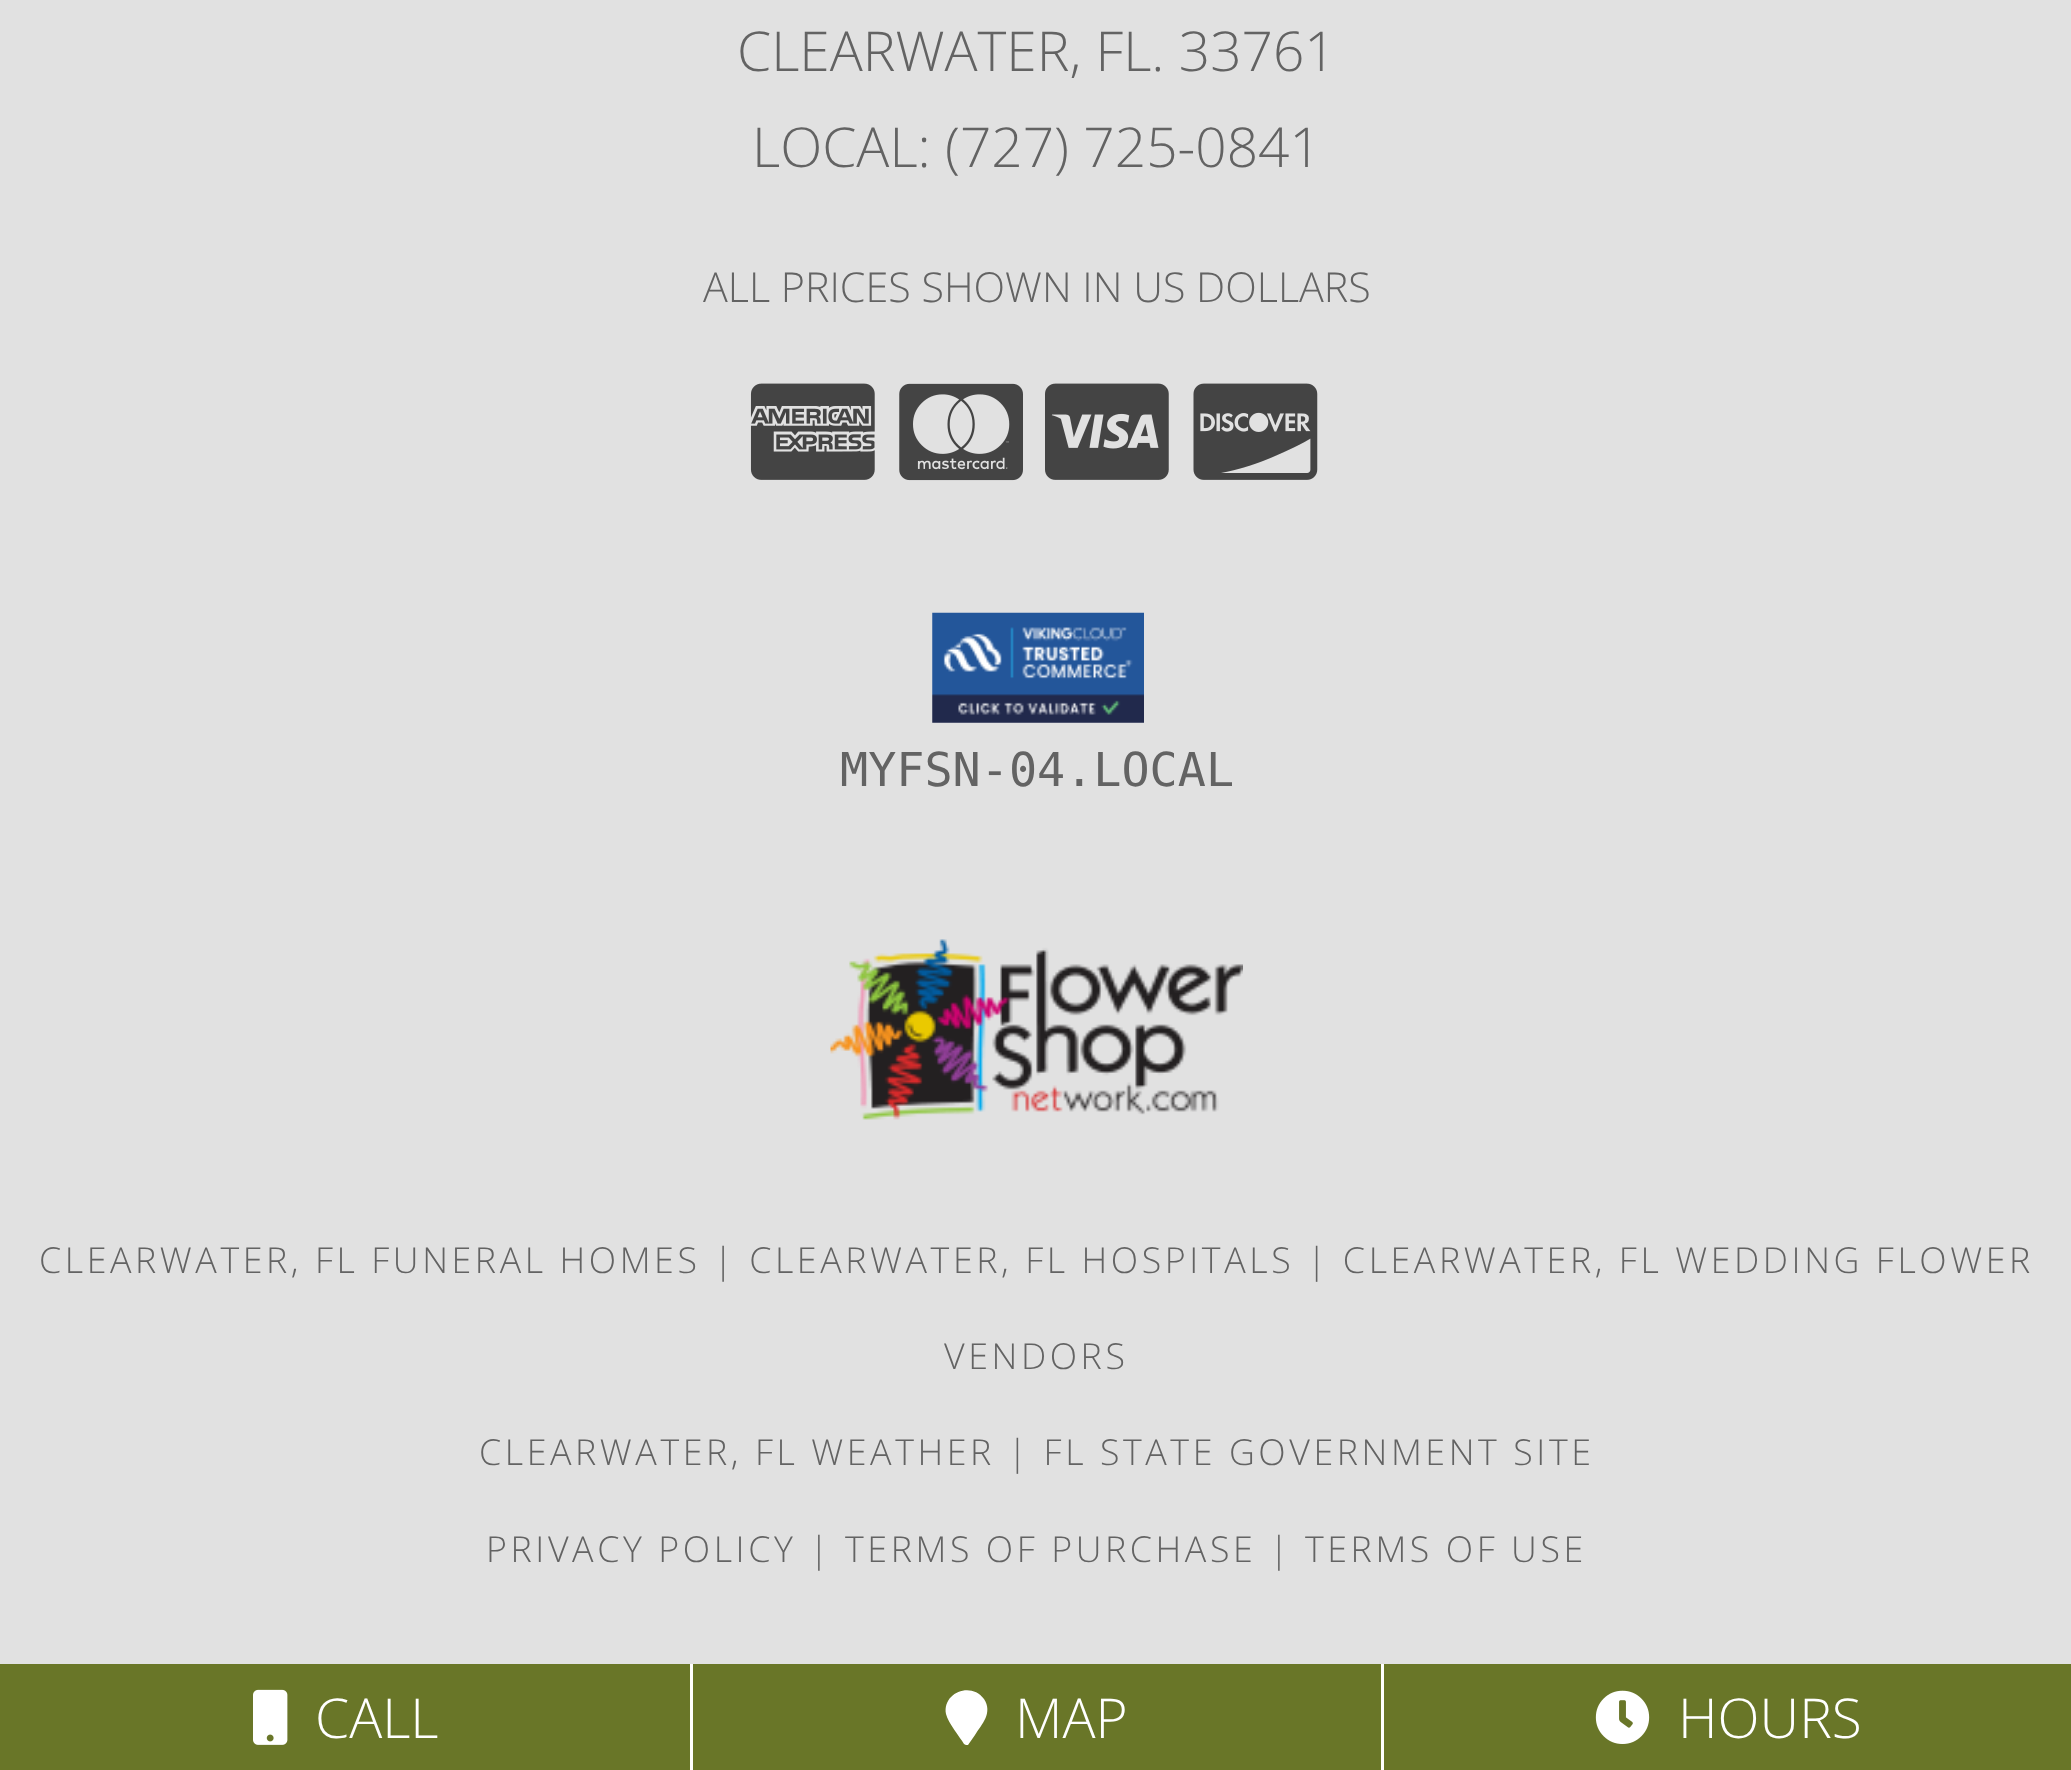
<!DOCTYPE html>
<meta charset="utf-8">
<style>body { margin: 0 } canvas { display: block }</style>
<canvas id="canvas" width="2071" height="1770"></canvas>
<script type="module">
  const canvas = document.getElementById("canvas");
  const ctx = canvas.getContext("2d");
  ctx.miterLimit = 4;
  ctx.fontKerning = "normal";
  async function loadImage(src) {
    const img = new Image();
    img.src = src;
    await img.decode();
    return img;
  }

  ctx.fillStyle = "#e1e1e1";
  ctx.fillRect(0, 0, 2071, 1770);
  ctx.font = "300 55px Open Sans";
  ctx.fillStyle = "#636363";
  ctx.fillText("CLEARWATER, FL. 33761", 737, 71);
  ctx.fillText("LOCAL: (727) 725-0841", 752, 167);
  ctx.font = "300 41.25px Open Sans";
  ctx.fillText("ALL PRICES SHOWN IN US DOLLARS", 703, 302);
  ctx.drawImage(await loadImage("img1.png"), 750, 383, 125, 97);
  ctx.drawImage(await loadImage("img2.png"), 899, 383, 124, 98);
  ctx.drawImage(await loadImage("img3.png"), 1045, 383, 124, 97);
  ctx.drawImage(await loadImage("img4.png"), 1193, 383, 125, 97);
  ctx.drawImage(await loadImage("img5.png"), 932, 612, 212, 111);
  ctx.font = "46.75px DejaVu Sans Mono";
  ctx.fillText("MYFSN-04.LOCAL", 840, 786);
  ctx.drawImage(await loadImage("img6.png"), 830, 939, 413, 181);
  ctx.letterSpacing = "3.58px";
  ctx.font = "300 35.75px Open Sans";
  ctx.fillText("CLEARWATER, FL FUNERAL HOMES | CLEARWATER, FL HOSPITALS | CLEARWATER, FL WEDDING FLOWER", 39, 1273);
  ctx.fillText("VENDORS", 944, 1369);
  ctx.fillText("CLEARWATER, FL WEATHER | FL STATE GOVERNMENT SITE", 479, 1465);
  ctx.fillText("PRIVACY POLICY | TERMS OF PURCHASE | TERMS OF USE", 486, 1562);
  ctx.fillStyle = "#697628";
  ctx.fillRect(0, 1664, 690, 106);
  ctx.drawImage(await loadImage("img7.png"), 253, 1689, 35, 56);
  ctx.letterSpacing = "0px";
  ctx.font = "300 55px Open Sans";
  ctx.fillStyle = "#ffffff";
  ctx.fillText("CALL", 315, 1738);
  ctx.fillStyle = "#697628";
  ctx.fillRect(693, 1664, 688, 106);
  ctx.fillStyle = "#ffffff";
  ctx.fillRect(690, 1664, 3, 106);
  ctx.beginPath();
  ctx.moveTo(964, 1744);
  ctx.bezierCurveTo(960, 1737, 948, 1723, 946, 1714);
  ctx.bezierCurveTo(942, 1693, 971, 1681, 984, 1699);
  ctx.bezierCurveTo(993, 1713, 982, 1724, 975, 1735);
  ctx.lineTo(968, 1745);
  ctx.bezierCurveTo(967, 1745, 965, 1745, 964, 1744);
  ctx.closePath();
  ctx.fill();
  ctx.fillText("MAP", 1015, 1738);
  ctx.fillStyle = "#697628";
  ctx.fillRect(1384, 1664, 687, 106);
  ctx.fillStyle = "#ffffff";
  ctx.fillRect(1381, 1664, 3, 106);
  ctx.drawImage(await loadImage("img8.png"), 1595, 1690, 55, 54);
  ctx.fillText("HOURS", 1678, 1738);
</script>
